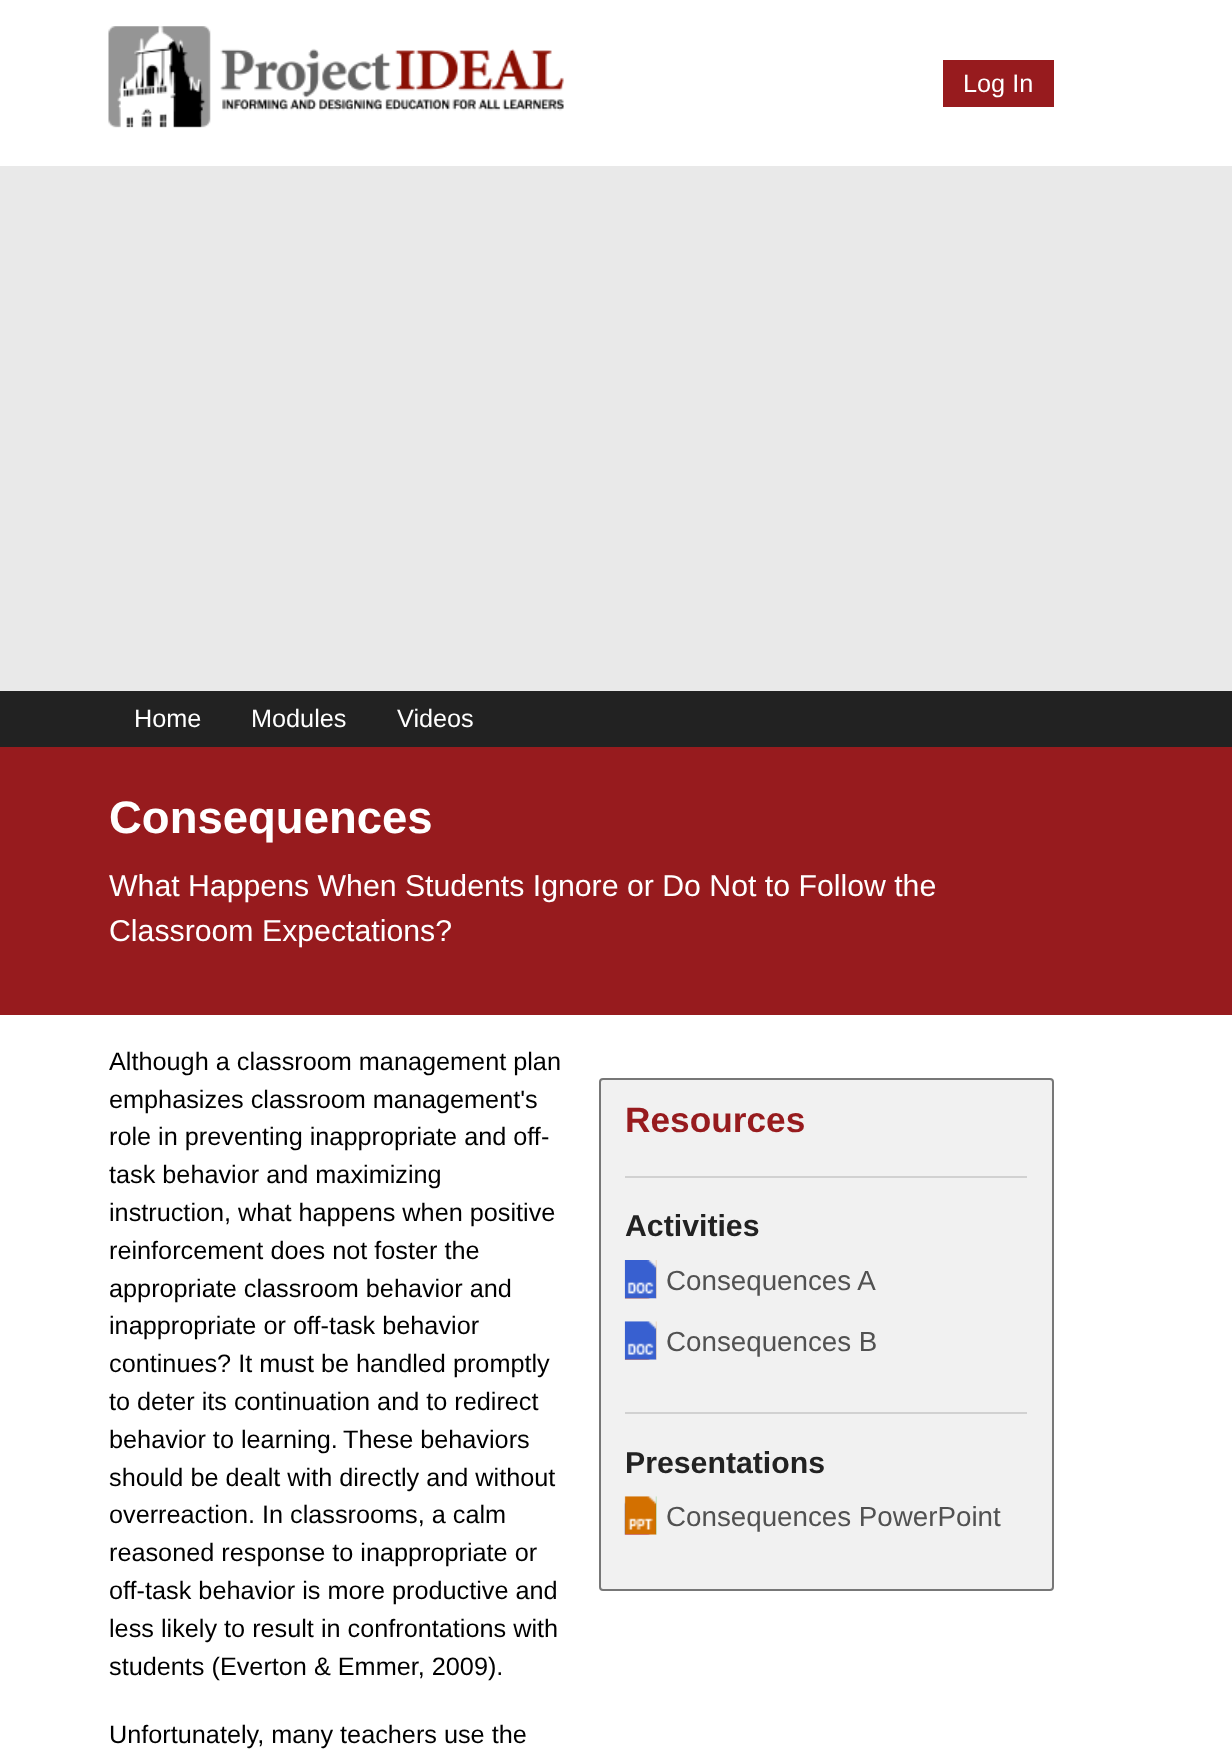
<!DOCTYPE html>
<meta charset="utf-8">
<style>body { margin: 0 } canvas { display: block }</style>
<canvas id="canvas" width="1232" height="1758"></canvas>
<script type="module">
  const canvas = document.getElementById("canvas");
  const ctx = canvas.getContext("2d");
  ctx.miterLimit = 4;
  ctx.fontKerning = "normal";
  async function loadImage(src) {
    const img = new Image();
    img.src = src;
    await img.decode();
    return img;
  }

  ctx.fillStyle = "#e9e9e9";
  ctx.fillRect(0, 0, 1232, 1758);
  ctx.fillStyle = "#ffffff";
  ctx.fillRect(0, 0, 1232, 166);
  ctx.drawImage(await loadImage("img1.png"), 108, 26, 456, 102);
  ctx.fillStyle = "#971b1e";
  ctx.fillRect(943, 60, 111, 47);
  ctx.font = "25.25px Liberation Sans";
  ctx.fillStyle = "#ffffff";
  ctx.fillText("Log In", 963, 92);
  ctx.fillStyle = "#222222";
  ctx.fillRect(0, 691, 1232, 56);
  ctx.fillStyle = "#ffffff";
  ctx.fillText("Home", 134, 727);
  ctx.fillText("Modules", 251, 727);
  ctx.fillText("Videos", 397, 727);
  ctx.fillStyle = "#971b1e";
  ctx.fillRect(0, 747, 1232, 268);
  ctx.font = "bold 45.5px Liberation Sans";
  ctx.fillStyle = "#ffffff";
  ctx.fillText("Consequences", 109, 833);
  ctx.font = "30.25px Liberation Sans";
  ctx.fillText("What Happens When Students Ignore or Do Not to Follow the", 109, 896);
  ctx.fillText("Classroom Expectations?", 109, 941);
  ctx.fillRect(0, 1015, 1232, 743);
  ctx.font = "25.25px Liberation Sans";
  ctx.fillStyle = "#000000";
  ctx.fillText("Although a classroom management plan", 109, 1070);
  ctx.fillText("emphasizes classroom management's", 109, 1108);
  ctx.fillText("role in preventing inappropriate and off-", 109, 1145);
  ctx.fillText("task behavior and maximizing", 109, 1183);
  ctx.fillText("instruction, what happens when positive", 109, 1221);
  ctx.fillText("reinforcement does not foster the", 109, 1259);
  ctx.fillText("appropriate classroom behavior and", 109, 1297);
  ctx.fillText("inappropriate or off-task behavior", 109, 1334);
  ctx.fillText("continues? It must be handled promptly", 109, 1372);
  ctx.fillText("to deter its continuation and to redirect", 109, 1410);
  ctx.fillText("behavior to learning.", 109, 1448);
  ctx.fillText("These behaviors", 343, 1448);
  ctx.fillText("should be dealt with directly and without", 109, 1486);
  ctx.fillText("overreaction. In classrooms, a calm", 109, 1523);
  ctx.fillText("reasoned response to inappropriate or", 109, 1561);
  ctx.fillText("off-task behavior is more productive and", 109, 1599);
  ctx.fillText("less likely to result in confrontations with", 109, 1637);
  ctx.fillText("students (Everton & Emmer, 2009).", 109, 1675);
  ctx.fillText("Unfortunately, many teachers use the", 109, 1743);
  ctx.fillStyle = "#f1f1f1";
  ctx.beginPath();
  ctx.roundRect(600, 1079, 453, 511, 3);
  ctx.fill();
  ctx.strokeStyle = "#777777";
  ctx.lineWidth = 2;
  ctx.stroke();
  ctx.font = "bold 35.25px Liberation Sans";
  ctx.fillStyle = "#971b1e";
  ctx.fillText("Resources", 625, 1132);
  ctx.fillStyle = "#d1d1d1";
  ctx.fillRect(625, 1176, 402, 2);
  ctx.font = "bold 30.25px Liberation Sans";
  ctx.fillStyle = "#222222";
  ctx.fillText("Activities", 625, 1236);
  ctx.drawImage(await loadImage("img2.png"), 624, 1260, 33, 39);
  ctx.font = "27.75px Liberation Sans";
  ctx.fillStyle = "#515151";
  ctx.fillText("Consequences A", 666, 1290);
  ctx.drawImage(await loadImage("img3.png"), 624, 1321, 33, 39);
  ctx.fillText("Consequences B", 666, 1351);
  ctx.fillStyle = "#d1d1d1";
  ctx.fillRect(625, 1412, 402, 2);
  ctx.font = "bold 30.25px Liberation Sans";
  ctx.fillStyle = "#222222";
  ctx.fillText("Presentations", 625, 1473);
  ctx.drawImage(await loadImage("img4.png"), 624, 1496, 33, 39);
  ctx.font = "27.75px Liberation Sans";
  ctx.fillStyle = "#515151";
  ctx.fillText("Consequences PowerPoint", 666, 1526);
</script>
